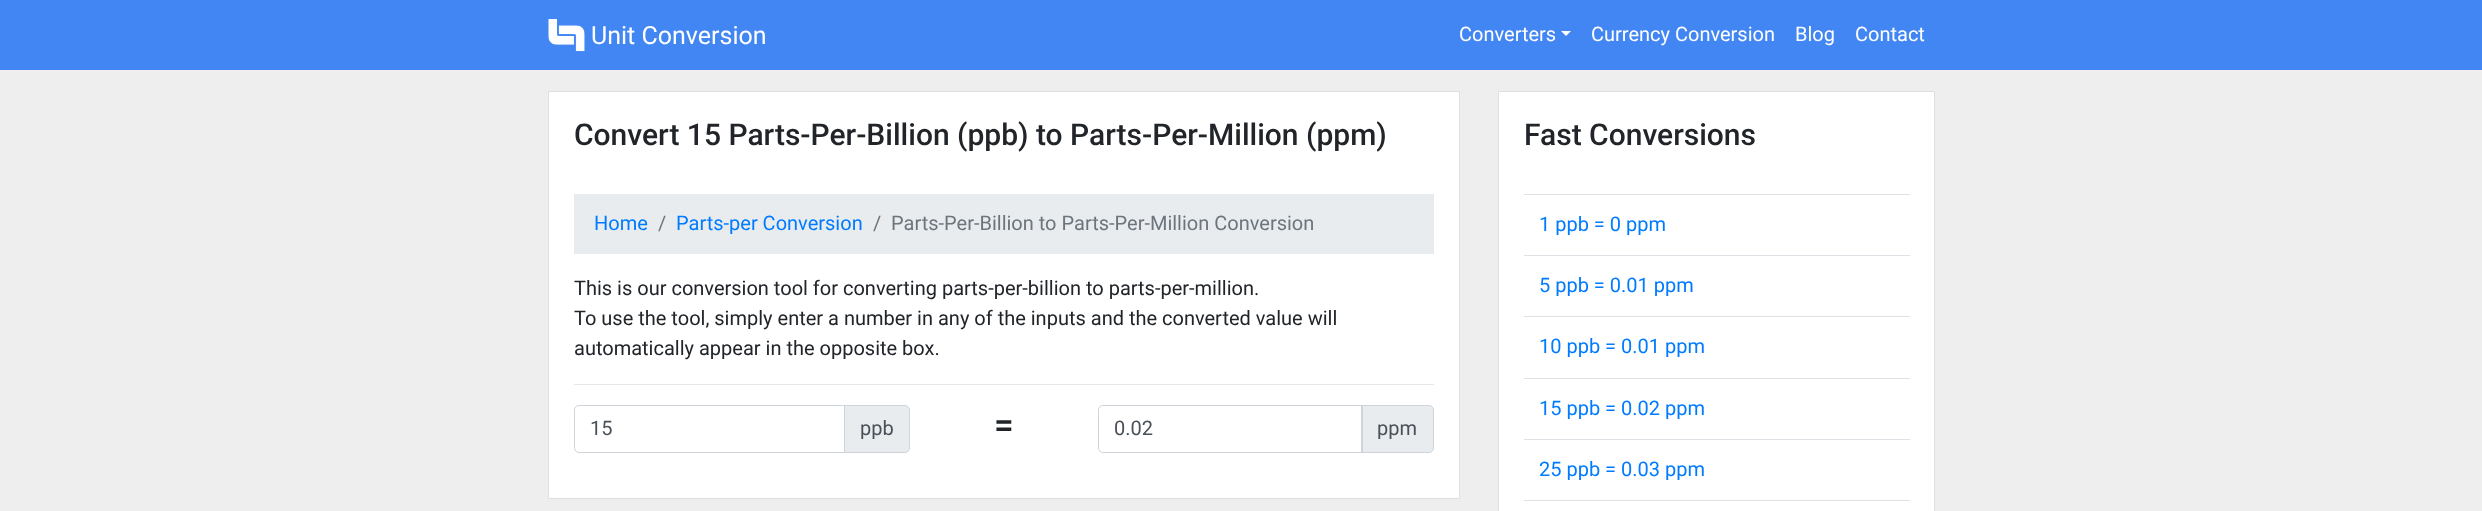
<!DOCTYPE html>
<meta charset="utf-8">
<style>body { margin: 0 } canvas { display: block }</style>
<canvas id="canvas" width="2482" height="511"></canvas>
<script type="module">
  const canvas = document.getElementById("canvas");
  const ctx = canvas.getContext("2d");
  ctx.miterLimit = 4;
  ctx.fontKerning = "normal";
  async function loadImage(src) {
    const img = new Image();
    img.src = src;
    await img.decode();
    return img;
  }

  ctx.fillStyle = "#eeeeee";
  ctx.fillRect(0, 0, 2482, 511);
  ctx.fillStyle = "#4286f4";
  ctx.fillRect(0, 0, 2482, 70);
  ctx.drawImage(await loadImage("img1.png"), 548, 19, 37, 33);
  ctx.font = "25px Roboto";
  ctx.fillStyle = "#ffffff";
  ctx.fillText("Unit Conversion", 591, 44);
  ctx.font = "20px Roboto";
  ctx.fillText("Converters", 1459, 41);
  ctx.beginPath();
  ctx.moveTo(1561, 31);
  ctx.lineTo(1571, 31);
  ctx.lineTo(1566, 36);
  ctx.closePath();
  ctx.fill();
  ctx.fillText("Currency Conversion", 1591, 41);
  ctx.fillText("Blog", 1795, 41);
  ctx.fillText("Contact", 1855, 41);
  ctx.beginPath();
  ctx.rect(548.5, 91.5, 911, 407);
  ctx.fill();
  ctx.strokeStyle = "#dfdfdf";
  ctx.stroke();
  ctx.font = "500 30px Roboto";
  ctx.fillStyle = "#212529";
  ctx.fillText("Convert 15 Parts-Per-Billion (ppb) to Parts-Per-Million (ppm)", 574, 145);
  ctx.fillStyle = "#e9ecef";
  ctx.fillRect(574, 194, 860, 60);
  ctx.font = "20px Roboto";
  ctx.fillStyle = "#007bff";
  ctx.fillText("Home", 594, 230);
  ctx.fillStyle = "#6c757d";
  ctx.fillText("/", 658, 230);
  ctx.fillStyle = "#007bff";
  ctx.fillText("Parts-per Conversion", 676, 230);
  ctx.fillStyle = "#6c757d";
  ctx.fillText("/", 873, 230);
  ctx.fillText("Parts-Per-Billion to Parts-Per-Million Conversion", 891, 230);
  ctx.fillStyle = "#212529";
  ctx.fillText("This is our conversion tool for converting parts-per-billion to parts-per-million.", 574, 295);
  ctx.fillText("To use the tool, simply enter a number in any of the inputs and the converted value will", 574, 325);
  ctx.fillText("automatically appear in the opposite box.", 574, 355);
  ctx.fillStyle = "#e6e6e6";
  ctx.fillRect(574, 384, 860, 1);
  ctx.fillStyle = "#e9ecef";
  ctx.beginPath();
  ctx.roundRect(844.5, 405.5, 65, 47, [0, 4.5, 4.5, 0]);
  ctx.fill();
  ctx.strokeStyle = "#ced4da";
  ctx.stroke();
  ctx.beginPath();
  ctx.roundRect(574.5, 405.5, 270, 47, [4.5, 0, 0, 4.5]);
  ctx.stroke();
  ctx.fillStyle = "#495057";
  ctx.fillText("15", 590, 435);
  ctx.fillText("ppb", 860, 435);
  ctx.font = "500 35px Roboto";
  ctx.fillStyle = "#212529";
  ctx.fillText("=", 994, 437);
  ctx.fillStyle = "#e9ecef";
  ctx.beginPath();
  ctx.roundRect(1361.5, 405.5, 72, 47, [0, 4.5, 4.5, 0]);
  ctx.fill();
  ctx.stroke();
  ctx.beginPath();
  ctx.roundRect(1098.5, 405.5, 264, 47, [4.5, 0, 0, 4.5]);
  ctx.stroke();
  ctx.font = "20px Roboto";
  ctx.fillStyle = "#495057";
  ctx.fillText("0.02", 1114, 435);
  ctx.fillText("ppm", 1377, 435);
  ctx.fillStyle = "#ffffff";
  ctx.beginPath();
  ctx.rect(1498.5, 91.5, 436, 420);
  ctx.fill();
  ctx.strokeStyle = "#dfdfdf";
  ctx.stroke();
  ctx.font = "500 30px Roboto";
  ctx.fillStyle = "#212529";
  ctx.fillText("Fast Conversions", 1524, 145);
  ctx.fillStyle = "#dee2e6";
  ctx.fillRect(1524, 194, 386, 1);
  ctx.font = "20px Roboto";
  ctx.fillStyle = "#007bff";
  ctx.fillText("1 ppb = 0 ppm", 1539, 231);
  ctx.fillStyle = "#dee2e6";
  ctx.fillRect(1524, 255, 386, 1);
  ctx.fillStyle = "#007bff";
  ctx.fillText("5 ppb = 0.01 ppm", 1539, 292);
  ctx.fillStyle = "#dee2e6";
  ctx.fillRect(1524, 316, 386, 1);
  ctx.fillStyle = "#007bff";
  ctx.fillText("10 ppb = 0.01 ppm", 1539, 353);
  ctx.fillStyle = "#dee2e6";
  ctx.fillRect(1524, 378, 386, 1);
  ctx.fillStyle = "#007bff";
  ctx.fillText("15 ppb = 0.02 ppm", 1539, 415);
  ctx.fillStyle = "#dee2e6";
  ctx.fillRect(1524, 439, 386, 1);
  ctx.fillStyle = "#007bff";
  ctx.fillText("25 ppb = 0.03 ppm", 1539, 476);
  ctx.fillStyle = "#dee2e6";
  ctx.fillRect(1524, 500, 386, 1);
</script>
